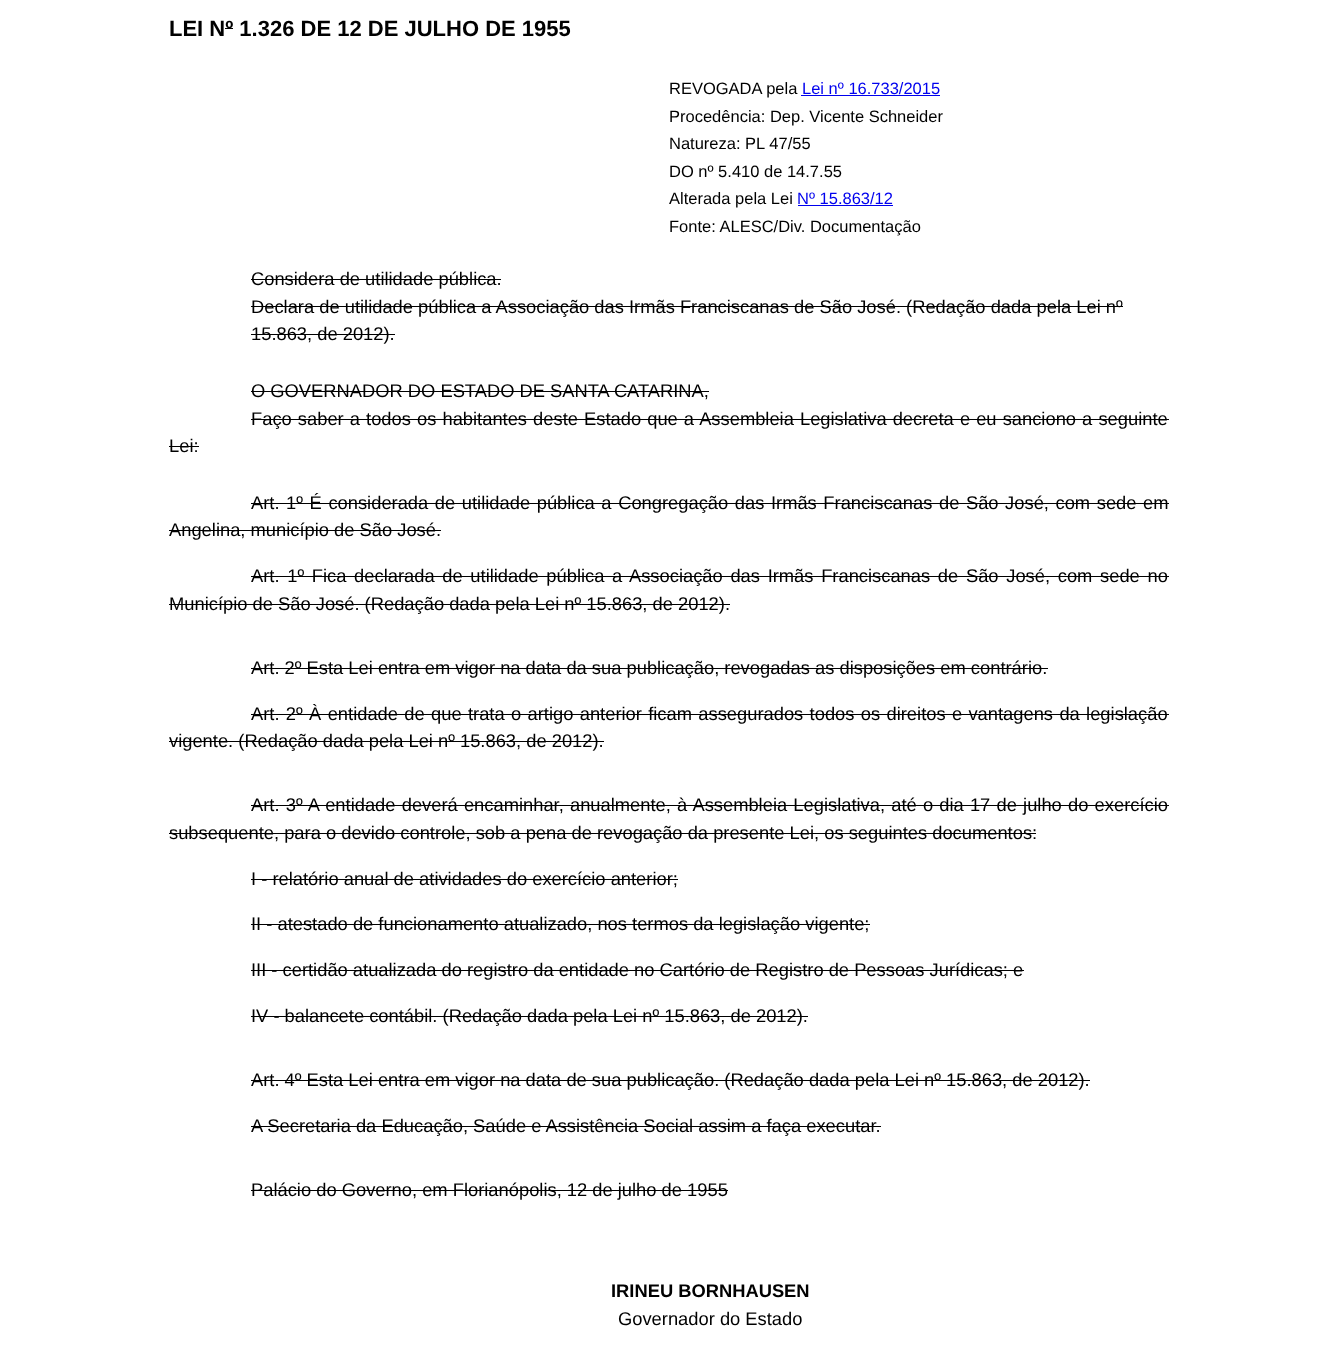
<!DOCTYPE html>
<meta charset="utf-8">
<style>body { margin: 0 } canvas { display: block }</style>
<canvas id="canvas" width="1337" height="1370"></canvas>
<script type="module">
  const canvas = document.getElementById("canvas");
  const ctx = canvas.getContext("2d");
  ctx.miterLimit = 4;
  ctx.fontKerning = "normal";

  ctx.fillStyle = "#ffffff";
  ctx.fillRect(0, 0, 1337, 1370);
  ctx.font = "bold 22px Liberation Sans";
  ctx.fillStyle = "#000000";
  ctx.fillText("LEI Nº 1.326 DE 12 DE JULHO DE 1955", 169, 36);
  ctx.fillRect(225, 28, 8, 1);
  ctx.font = "16.5px Liberation Sans";
  ctx.fillText("REVOGADA pela", 669, 94);
  ctx.fillStyle = "#0000ee";
  ctx.fillText("Lei nº 16.733/2015", 802, 94);
  ctx.fillRect(801, 95, 139, 1);
  ctx.fillStyle = "#000000";
  ctx.fillText("Procedência: Dep. Vicente Schneider", 669, 122);
  ctx.fillText("Natureza: PL 47/55", 669, 149);
  ctx.fillText("DO nº 5.410 de 14.7.55", 669, 177);
  ctx.fillText("Alterada pela Lei", 669, 204);
  ctx.fillStyle = "#0000ee";
  ctx.fillText("Nº 15.863/12", 797, 204);
  ctx.fillRect(798, 205, 95, 1);
  ctx.fillStyle = "#000000";
  ctx.fillText("Fonte: ALESC/Div. Documentação", 669, 232);
  ctx.font = "18.33px Liberation Sans";
  ctx.fillText("Considera de utilidade pública.", 251, 285);
  ctx.fillRect(251, 279, 250, 1);
  ctx.fillText("Declara de utilidade pública a Associação das Irmãs Franciscanas de São José. (Redação dada pela Lei nº", 251, 313);
  ctx.fillRect(251, 306, 872, 1);
  ctx.fillText("15.863, de 2012).", 251, 340);
  ctx.fillRect(251, 334, 144, 1);
  ctx.fillText("O GOVERNADOR DO ESTADO DE SANTA CATARINA,", 251, 397);
  ctx.fillRect(251, 391, 458, 1);
  ctx.wordSpacing = "1px";
  ctx.fillText("Faço saber a todos os habitantes deste Estado que a Assembleia Legislativa decreta e eu sanciono a seguinte", 251, 425);
  ctx.fillRect(251, 419, 918, 1);
  ctx.wordSpacing = "0px";
  ctx.fillText("Lei:", 169, 452);
  ctx.fillRect(169, 446, 30, 1);
  ctx.wordSpacing = "1.5px";
  ctx.fillText("Art. 1º É considerada de utilidade pública a Congregação das Irmãs Franciscanas de São José, com sede em", 251, 509);
  ctx.fillRect(251, 503, 918, 1);
  ctx.wordSpacing = "0px";
  ctx.fillText("Angelina, município de São José.", 169, 536);
  ctx.fillRect(169, 530, 272, 1);
  ctx.wordSpacing = "2.6px";
  ctx.fillText("Art. 1º Fica declarada de utilidade pública a Associação das Irmãs Franciscanas de São José, com sede no", 251, 582);
  ctx.fillRect(251, 576, 918, 1);
  ctx.wordSpacing = "0px";
  ctx.fillText("Município de São José. (Redação dada pela Lei nº 15.863, de 2012).", 169, 610);
  ctx.fillRect(169, 604, 561, 1);
  ctx.fillText("Art. 2º Esta Lei entra em vigor na data da sua publicação, revogadas as disposições em contrário.", 251, 674);
  ctx.fillRect(251, 668, 797, 1);
  ctx.wordSpacing = "1.25px";
  ctx.fillText("Art. 2º À entidade de que trata o artigo anterior ficam assegurados todos os direitos e vantagens da legislação", 251, 720);
  ctx.fillRect(251, 714, 918, 1);
  ctx.wordSpacing = "0px";
  ctx.fillText("vigente. (Redação dada pela Lei nº 15.863, de 2012).", 169, 747);
  ctx.fillRect(169, 741, 435, 1);
  ctx.wordSpacing = "1.1px";
  ctx.fillText("Art. 3º A entidade deverá encaminhar, anualmente, à Assembleia Legislativa, até o dia 17 de julho do exercício", 251, 811);
  ctx.fillRect(251, 805, 918, 1);
  ctx.wordSpacing = "0px";
  ctx.fillText("subsequente, para o devido controle, sob a pena de revogação da presente Lei, os seguintes documentos:", 169, 839);
  ctx.fillRect(169, 833, 867, 1);
  ctx.fillText("I - relatório anual de atividades do exercício anterior;", 251, 885);
  ctx.fillRect(251, 879, 427, 1);
  ctx.fillText("II - atestado de funcionamento atualizado, nos termos da legislação vigente;", 251, 930);
  ctx.fillRect(251, 924, 619, 1);
  ctx.fillText("III - certidão atualizada do registro da entidade no Cartório de Registro de Pessoas Jurídicas; e", 251, 976);
  ctx.fillRect(251, 970, 773, 1);
  ctx.fillText("IV - balancete contábil. (Redação dada pela Lei nº 15.863, de 2012).", 251, 1022);
  ctx.fillRect(251, 1016, 557, 1);
  ctx.fillText("Art. 4º Esta Lei entra em vigor na data de sua publicação. (Redação dada pela Lei nº 15.863, de 2012).", 251, 1086);
  ctx.fillRect(251, 1080, 839, 1);
  ctx.fillText("A Secretaria da Educação, Saúde e Assistência Social assim a faça executar.", 251, 1132);
  ctx.fillRect(251, 1126, 630, 1);
  ctx.fillText("Palácio do Governo, em Florianópolis, 12 de julho de 1955", 251, 1196);
  ctx.fillRect(251, 1190, 477, 1);
  ctx.font = "bold 18.33px Liberation Sans";
  ctx.fillText("IRINEU BORNHAUSEN", 611, 1297);
  ctx.font = "18.33px Liberation Sans";
  ctx.fillText("Governador do Estado", 618, 1325);
</script>
